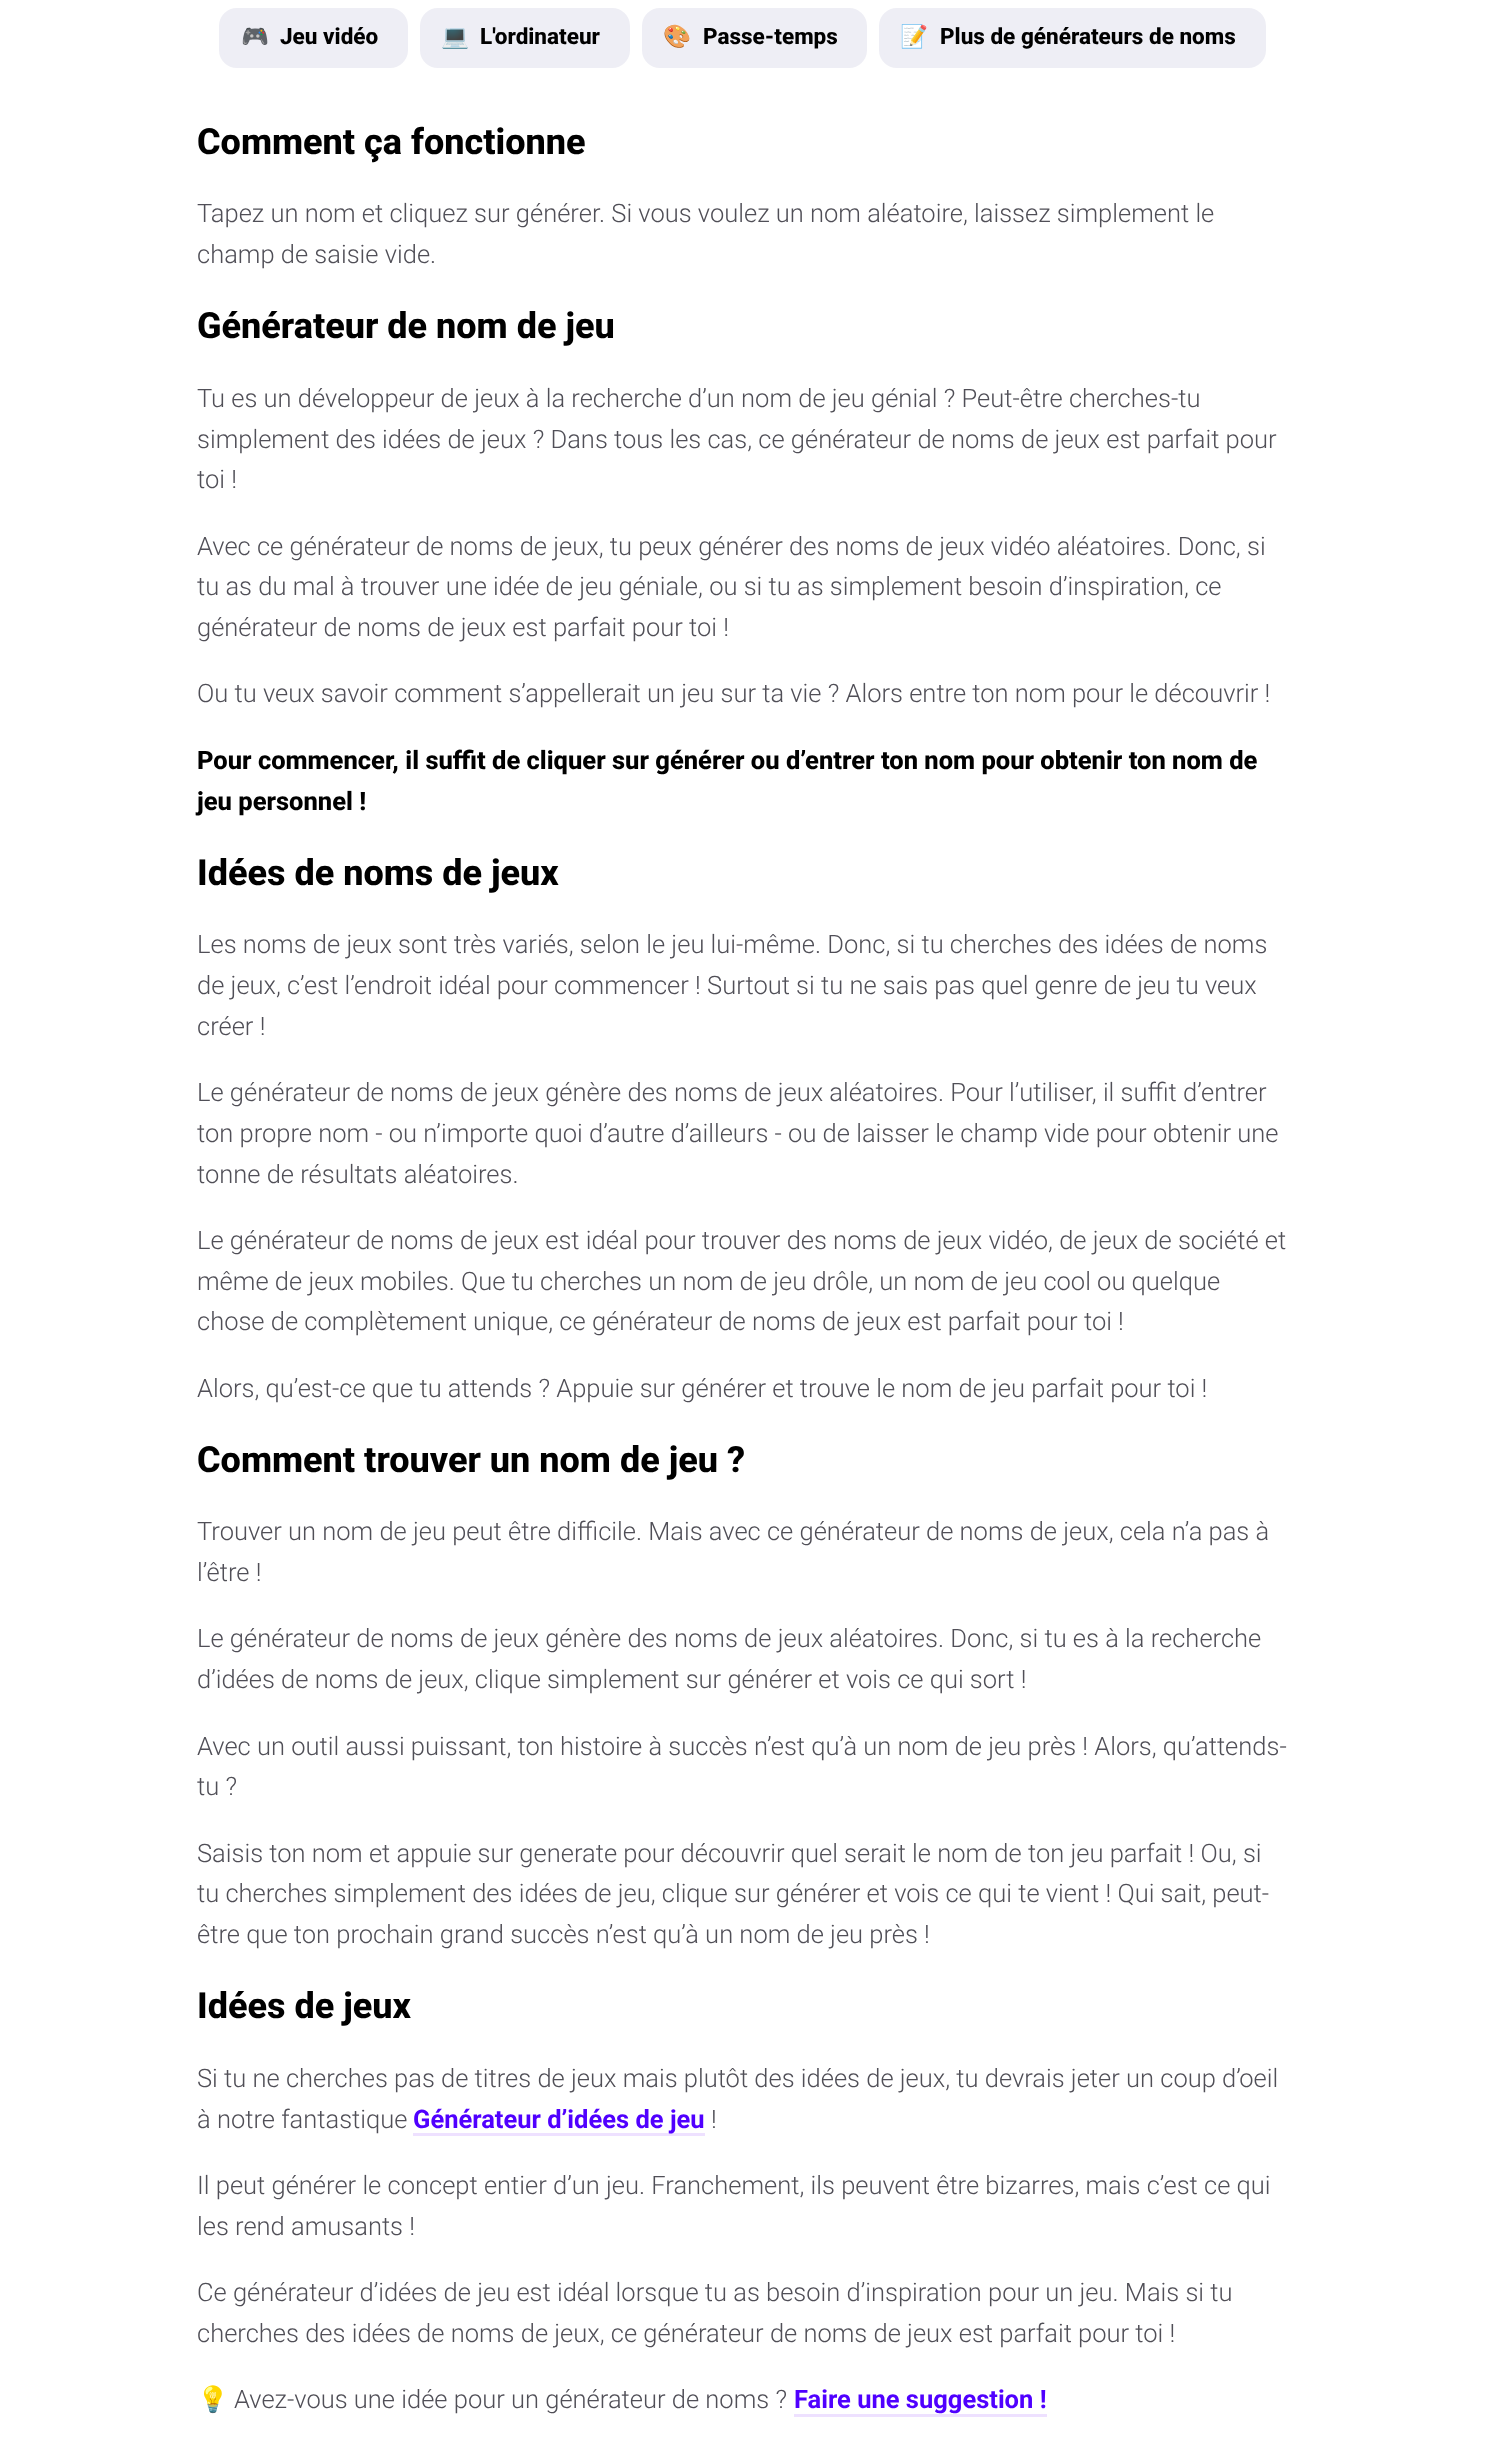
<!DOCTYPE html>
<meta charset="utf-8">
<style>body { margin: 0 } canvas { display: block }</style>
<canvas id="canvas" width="1485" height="2463"></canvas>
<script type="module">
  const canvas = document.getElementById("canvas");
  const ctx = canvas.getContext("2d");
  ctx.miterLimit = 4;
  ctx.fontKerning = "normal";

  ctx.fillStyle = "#ffffff";
  ctx.fillRect(0, 0, 1485, 2463);
  ctx.fillStyle = "#eeeef5";
  ctx.beginPath();
  ctx.roundRect(221.5, 10.5, 184, 55, 15.5);
  ctx.fill();
  ctx.strokeStyle = "#eeeef5";
  ctx.lineWidth = 5;
  ctx.stroke();
  ctx.font = "bold 22.5px Noto Color Emoji";
  ctx.fillStyle = "#000000";
  ctx.fillText("🎮", 241, 44);
  ctx.font = "800 22.5px Roboto";
  ctx.fillText("Jeu vidéo", 280, 44);
  ctx.fillStyle = "#eeeef5";
  ctx.beginPath();
  ctx.roundRect(422.5, 10.5, 205, 55, 15.5);
  ctx.fill();
  ctx.stroke();
  ctx.font = "bold 22.5px Noto Color Emoji";
  ctx.fillStyle = "#000000";
  ctx.fillText("💻", 441, 44);
  ctx.font = "800 22.5px Roboto";
  ctx.fillText("L'ordinateur", 480, 44);
  ctx.fillStyle = "#eeeef5";
  ctx.beginPath();
  ctx.roundRect(644.5, 10.5, 220, 55, 15.5);
  ctx.fill();
  ctx.stroke();
  ctx.font = "bold 22.5px Noto Color Emoji";
  ctx.fillStyle = "#000000";
  ctx.fillText("🎨", 663, 44);
  ctx.font = "800 22.5px Roboto";
  ctx.fillText("Passe-temps", 703, 44);
  ctx.fillStyle = "#eeeef5";
  ctx.beginPath();
  ctx.roundRect(881.5, 10.5, 382, 55, 15.5);
  ctx.fill();
  ctx.stroke();
  ctx.font = "bold 22.5px Noto Color Emoji";
  ctx.fillStyle = "#000000";
  ctx.fillText("📝", 900, 44);
  ctx.font = "800 22.5px Roboto";
  ctx.fillText("Plus de générateurs de noms", 940, 44);
  ctx.font = "800 36px Roboto";
  ctx.fillText("Comment ça fonctionne", 197, 154);
  ctx.font = "300 25.5px Roboto";
  ctx.fillStyle = "#504f57";
  ctx.fillText("Tapez un nom et cliquez sur générer. Si vous voulez un nom aléatoire, laissez simplement le", 197, 222);
  ctx.fillText("champ de saisie vide.", 197, 263);
  ctx.font = "800 36px Roboto";
  ctx.fillStyle = "#000000";
  ctx.fillText("Générateur de nom de jeu", 197, 338);
  ctx.font = "300 25.5px Roboto";
  ctx.fillStyle = "#504f57";
  ctx.fillText("Tu es un développeur de jeux à la recherche d’un nom de jeu génial ? Peut-être cherches-tu", 197, 407);
  ctx.fillText("simplement des idées de jeux ? Dans tous les cas, ce générateur de noms de jeux est parfait pour", 197, 448);
  ctx.fillText("toi !", 197, 488);
  ctx.fillText("Avec ce générateur de noms de jeux, tu peux générer des noms de jeux vidéo aléatoires. Donc, si", 197, 555);
  ctx.fillText("tu as du mal à trouver une idée de jeu géniale, ou si tu as simplement besoin d’inspiration, ce", 197, 595);
  ctx.fillText("générateur de noms de jeux est parfait pour toi !", 197, 636);
  ctx.fillText("Ou tu veux savoir comment s’appellerait un jeu sur ta vie ? Alors entre ton nom pour le découvrir !", 197, 702);
  ctx.font = "800 25.5px Roboto";
  ctx.fillStyle = "#000000";
  ctx.fillText("Pour commencer, il suffit de cliquer sur générer ou d’entrer ton nom pour obtenir ton nom de", 197, 769);
  ctx.fillText("jeu personnel !", 197, 810);
  ctx.font = "800 36px Roboto";
  ctx.fillText("Idées de noms de jeux", 197, 885);
  ctx.font = "300 25.5px Roboto";
  ctx.fillStyle = "#504f57";
  ctx.fillText("Les noms de jeux sont très variés, selon le jeu lui-même. Donc, si tu cherches des idées de noms", 197, 953);
  ctx.fillText("de jeux, c’est l’endroit idéal pour commencer ! Surtout si tu ne sais pas quel genre de jeu tu veux", 197, 994);
  ctx.fillText("créer !", 197, 1035);
  ctx.fillText("Le générateur de noms de jeux génère des noms de jeux aléatoires. Pour l’utiliser, il suffit d’entrer", 197, 1101);
  ctx.fillText("ton propre nom - ou n’importe quoi d’autre d’ailleurs - ou de laisser le champ vide pour obtenir une", 197, 1142);
  ctx.fillText("tonne de résultats aléatoires.", 197, 1183);
  ctx.fillText("Le générateur de noms de jeux est idéal pour trouver des noms de jeux vidéo, de jeux de société et", 197, 1249);
  ctx.fillText("même de jeux mobiles. Que tu cherches un nom de jeu drôle, un nom de jeu cool ou quelque", 197, 1290);
  ctx.fillText("chose de complètement unique, ce générateur de noms de jeux est parfait pour toi !", 197, 1330);
  ctx.fillText("Alors, qu’est-ce que tu attends ? Appuie sur générer et trouve le nom de jeu parfait pour toi !", 197, 1397);
  ctx.font = "800 36px Roboto";
  ctx.fillStyle = "#000000";
  ctx.fillText("Comment trouver un nom de jeu ?", 197, 1472);
  ctx.font = "300 25.5px Roboto";
  ctx.fillStyle = "#504f57";
  ctx.fillText("Trouver un nom de jeu peut être difficile. Mais avec ce générateur de noms de jeux, cela n’a pas à", 197, 1540);
  ctx.fillText("l’être !", 197, 1581);
  ctx.fillText("Le générateur de noms de jeux génère des noms de jeux aléatoires. Donc, si tu es à la recherche", 197, 1647);
  ctx.fillText("d’idées de noms de jeux, clique simplement sur générer et vois ce qui sort !", 197, 1688);
  ctx.fillText("Avec un outil aussi puissant, ton histoire à succès n’est qu’à un nom de jeu près ! Alors, qu’attends-", 197, 1755);
  ctx.fillText("tu ?", 197, 1795);
  ctx.fillText("Saisis ton nom et appuie sur generate pour découvrir quel serait le nom de ton jeu parfait ! Ou, si", 197, 1862);
  ctx.fillText("tu cherches simplement des idées de jeu, clique sur générer et vois ce qui te vient ! Qui sait, peut-", 197, 1902);
  ctx.fillText("être que ton prochain grand succès n’est qu’à un nom de jeu près !", 197, 1943);
  ctx.font = "800 36px Roboto";
  ctx.fillStyle = "#000000";
  ctx.fillText("Idées de jeux", 197, 2018);
  ctx.font = "300 25.5px Roboto";
  ctx.fillStyle = "#504f57";
  ctx.fillText("Si tu ne cherches pas de titres de jeux mais plutôt des idées de jeux, tu devrais jeter un coup d’oeil", 197, 2087);
  ctx.fillText("à notre fantastique", 197, 2128);
  ctx.fillStyle = "#eee1ff";
  ctx.fillRect(413, 2133, 292, 3);
  ctx.font = "bold 25.5px Roboto";
  ctx.fillStyle = "#5000ff";
  ctx.fillText("Générateur d’idées de jeu", 413, 2128);
  ctx.font = "300 25.5px Roboto";
  ctx.fillStyle = "#504f57";
  ctx.fillText("!", 711, 2128);
  ctx.fillText("Il peut générer le concept entier d’un jeu. Franchement, ils peuvent être bizarres, mais c’est ce qui", 197, 2194);
  ctx.fillText("les rend amusants !", 197, 2235);
  ctx.fillText("Ce générateur d’idées de jeu est idéal lorsque tu as besoin d’inspiration pour un jeu. Mais si tu", 197, 2301);
  ctx.fillText("cherches des idées de noms de jeux, ce générateur de noms de jeux est parfait pour toi !", 197, 2342);
  ctx.font = "bold 25.5px Noto Color Emoji";
  ctx.fillStyle = "#000000";
  ctx.fillText("💡", 197, 2408);
  ctx.font = "300 25.5px Roboto";
  ctx.fillStyle = "#504f57";
  ctx.fillText("Avez-vous une idée pour un générateur de noms ?", 234, 2408);
  ctx.font = "bold 25.5px Roboto";
  ctx.fillStyle = "#5000ff";
  ctx.fillText("Faire une suggestion !", 794, 2408);
  ctx.fillStyle = "#eee1ff";
  ctx.fillRect(794, 2414, 253, 3);
</script>
